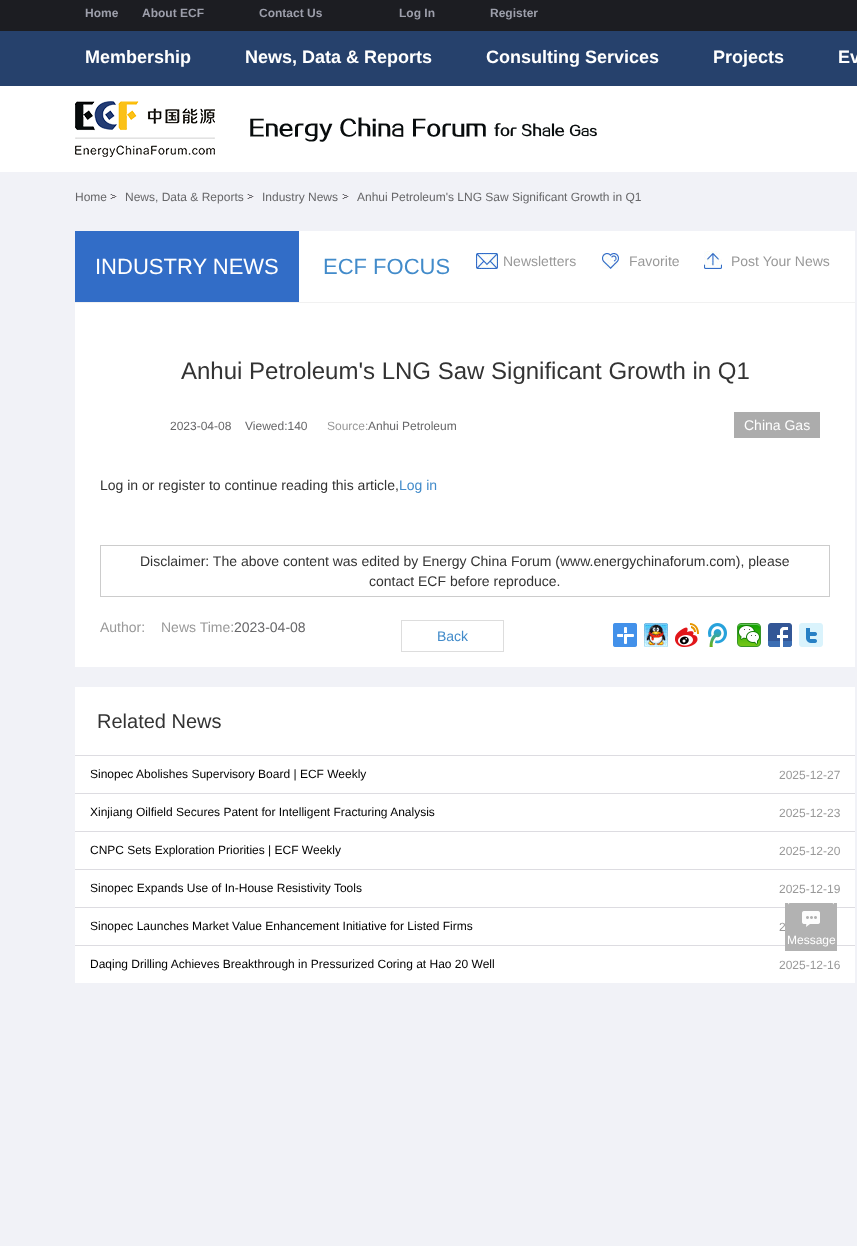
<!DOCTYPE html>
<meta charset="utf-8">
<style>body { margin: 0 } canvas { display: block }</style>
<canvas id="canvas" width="857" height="1246"></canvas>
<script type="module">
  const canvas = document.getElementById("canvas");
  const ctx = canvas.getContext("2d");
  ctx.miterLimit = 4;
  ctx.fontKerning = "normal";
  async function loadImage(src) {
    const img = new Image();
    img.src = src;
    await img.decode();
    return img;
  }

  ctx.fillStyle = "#ffffff";
  ctx.fillRect(0, 0, 857, 1246);
  ctx.fillStyle = "#1c1d22";
  ctx.fillRect(0, 0, 857, 31);
  ctx.font = "bold 12px Liberation Sans";
  ctx.fillStyle = "#9d9fab";
  ctx.fillText("Home", 85, 17);
  ctx.fillText("About ECF", 142, 17);
  ctx.fillText("Contact Us", 259, 17);
  ctx.fillText("Log In", 399, 17);
  ctx.fillText("Register", 490, 17);
  ctx.fillStyle = "#26416c";
  ctx.fillRect(0, 31, 857, 55);
  ctx.font = "bold 18px Liberation Sans";
  ctx.fillStyle = "#ffffff";
  ctx.fillText("Membership", 85, 63);
  ctx.fillText("News, Data & Reports", 245, 63);
  ctx.fillText("Consulting Services", 486, 63);
  ctx.fillText("Projects", 713, 63);
  ctx.fillText("Ev", 838, 63);
  ctx.drawImage(await loadImage("img1.png"), 75, 101, 522, 56);
  ctx.fillStyle = "#f1f2f7";
  ctx.fillRect(0, 172, 857, 1074);
  ctx.font = "12px Liberation Sans";
  ctx.fillStyle = "#666668";
  ctx.fillText("Home", 75, 201);
  ctx.drawImage(await loadImage("img2.png"), 110, 194, 7, 5);
  ctx.fillText("News, Data & Reports", 125, 201);
  ctx.drawImage(await loadImage("img2.png"), 247, 194, 7, 5);
  ctx.fillText("Industry News", 262, 201);
  ctx.drawImage(await loadImage("img2.png"), 342, 194, 7, 5);
  ctx.fillText("Anhui Petroleum's LNG Saw Significant Growth in Q1", 357, 201);
  ctx.fillStyle = "#ffffff";
  ctx.fillRect(299, 231, 556, 71);
  ctx.fillStyle = "#f1f1f1";
  ctx.fillRect(75, 302, 780, 1);
  ctx.fillStyle = "#326dc7";
  ctx.fillRect(75, 231, 224, 71);
  ctx.font = "22px Liberation Sans";
  ctx.fillStyle = "#ffffff";
  ctx.fillText("INDUSTRY NEWS", 95, 274);
  ctx.fillStyle = "#428bca";
  ctx.fillText("ECF FOCUS", 323, 274);
  ctx.drawImage(await loadImage("img3.png"), 476, 253, 22, 16);
  ctx.font = "14px Liberation Sans";
  ctx.fillStyle = "#999999";
  ctx.fillText("Newsletters", 503, 266);
  ctx.drawImage(await loadImage("img4.png"), 602, 253, 17, 16);
  ctx.fillText("Favorite", 629, 266);
  ctx.drawImage(await loadImage("img5.png"), 704, 251, 18, 18);
  ctx.fillText("Post Your News", 731, 266);
  ctx.fillStyle = "#ffffff";
  ctx.fillRect(75, 303, 780, 364);
  ctx.font = "24px Liberation Sans";
  ctx.fillStyle = "#333333";
  ctx.fillText("Anhui Petroleum's LNG Saw Significant Growth in Q1", 181, 379);
  ctx.font = "12px Liberation Sans";
  ctx.fillStyle = "#666668";
  ctx.fillText("2023-04-08", 170, 430);
  ctx.fillText("Viewed:140", 245, 430);
  ctx.fillStyle = "#999999";
  ctx.fillText("Source:", 327, 430);
  ctx.fillStyle = "#666668";
  ctx.fillText("Anhui Petroleum", 368, 430);
  ctx.fillStyle = "#acacac";
  ctx.fillRect(734, 412, 86, 26);
  ctx.font = "14px Liberation Sans";
  ctx.fillStyle = "#ffffff";
  ctx.fillText("China Gas", 744, 430);
  ctx.fillStyle = "#333333";
  ctx.fillText("Log in or register to continue reading this article,", 100, 490);
  ctx.fillStyle = "#428bca";
  ctx.fillText("Log in", 399, 490);
  ctx.strokeStyle = "#cccccc";
  ctx.strokeRect(100.5, 545.5, 729, 51);
  ctx.fillStyle = "#333333";
  ctx.fillText("Disclaimer: The above content was edited by Energy China Forum (www.energychinaforum.com), please", 140, 566);
  ctx.fillText("contact ECF before reproduce.", 369, 586);
  ctx.fillStyle = "#999999";
  ctx.fillText("Author:", 100, 632);
  ctx.fillText("News Time:", 161, 632);
  ctx.fillStyle = "#666668";
  ctx.fillText("2023-04-08", 234, 632);
  ctx.strokeStyle = "#dddddd";
  ctx.strokeRect(401.5, 620.5, 102, 31);
  ctx.fillStyle = "#428bca";
  ctx.fillText("Back", 437, 641);
  ctx.drawImage(await loadImage("img6.png"), 613, 623, 24, 24);
  ctx.drawImage(await loadImage("img7.png"), 644, 623, 24, 24);
  ctx.drawImage(await loadImage("img8.png"), 675, 623, 24, 24);
  ctx.drawImage(await loadImage("img9.png"), 708, 623, 19, 24);
  ctx.drawImage(await loadImage("img10.png"), 737, 623, 24, 24);
  ctx.drawImage(await loadImage("img11.png"), 768, 623, 24, 24);
  ctx.drawImage(await loadImage("img12.png"), 799, 623, 24, 24);
  ctx.fillStyle = "#ffffff";
  ctx.fillRect(75, 687, 780, 296);
  ctx.font = "20px Liberation Sans";
  ctx.fillStyle = "#333333";
  ctx.fillText("Related News", 97, 728);
  ctx.fillStyle = "#dddce1";
  ctx.fillRect(75, 755, 780, 1);
  ctx.font = "12px Liberation Sans";
  ctx.fillStyle = "#000000";
  ctx.fillText("Sinopec Abolishes Supervisory Board | ECF Weekly", 90, 778);
  ctx.fillStyle = "#999999";
  ctx.fillText("2025-12-27", 779, 779);
  ctx.fillStyle = "#dddce1";
  ctx.fillRect(75, 793, 780, 1);
  ctx.fillStyle = "#000000";
  ctx.fillText("Xinjiang Oilfield Secures Patent for Intelligent Fracturing Analysis", 90, 816);
  ctx.fillStyle = "#999999";
  ctx.fillText("2025-12-23", 779, 817);
  ctx.fillStyle = "#dddce1";
  ctx.fillRect(75, 831, 780, 1);
  ctx.fillStyle = "#000000";
  ctx.fillText("CNPC Sets Exploration Priorities | ECF Weekly", 90, 854);
  ctx.fillStyle = "#999999";
  ctx.fillText("2025-12-20", 779, 855);
  ctx.fillStyle = "#dddce1";
  ctx.fillRect(75, 869, 780, 1);
  ctx.fillStyle = "#000000";
  ctx.fillText("Sinopec Expands Use of In-House Resistivity Tools", 90, 892);
  ctx.fillStyle = "#999999";
  ctx.fillText("2025-12-19", 779, 893);
  ctx.fillStyle = "#dddce1";
  ctx.fillRect(75, 907, 780, 1);
  ctx.fillStyle = "#000000";
  ctx.fillText("Sinopec Launches Market Value Enhancement Initiative for Listed Firms", 90, 930);
  ctx.fillStyle = "#999999";
  ctx.fillText("2", 779, 931);
  ctx.fillStyle = "#dddce1";
  ctx.fillRect(75, 945, 780, 1);
  ctx.fillStyle = "#000000";
  ctx.fillText("Daqing Drilling Achieves Breakthrough in Pressurized Coring at Hao 20 Well", 90, 968);
  ctx.fillStyle = "#999999";
  ctx.fillText("2025-12-16", 779, 969);
  ctx.fillStyle = "#b2b2b2";
  ctx.fillRect(785, 903, 52, 48);
  ctx.drawImage(await loadImage("img13.png"), 788, 903, 46, 24);
  ctx.fillStyle = "#ffffff";
  ctx.fillText("Message", 787, 944);
</script>
